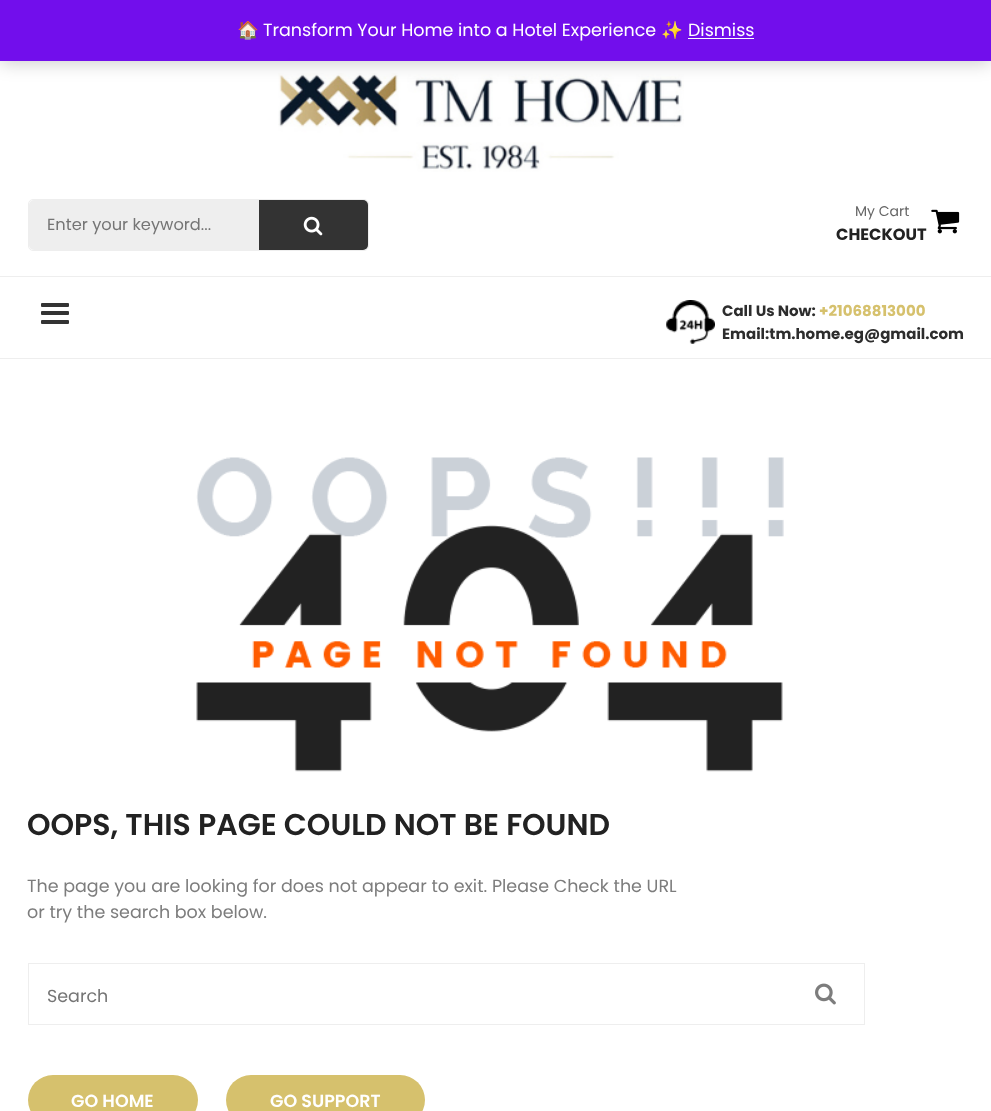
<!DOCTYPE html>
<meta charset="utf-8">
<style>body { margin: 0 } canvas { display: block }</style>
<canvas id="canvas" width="991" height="1111"></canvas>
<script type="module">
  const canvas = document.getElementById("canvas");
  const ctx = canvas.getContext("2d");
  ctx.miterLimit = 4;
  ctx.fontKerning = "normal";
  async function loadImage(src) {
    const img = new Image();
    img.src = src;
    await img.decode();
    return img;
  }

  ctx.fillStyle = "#ffffff";
  ctx.fillRect(0, 0, 991, 1111);
  ctx.drawImage(await loadImage("img1.png"), 278, 73, 406, 99);
  ctx.fillStyle = "rgba(0, 0, 0, 0.2)";
  ctx.filter = "blur(9px)";
  ctx.beginPath();
  ctx.rect(0, 1, 991, 62);
  ctx.fill();
  ctx.filter = "none";
  ctx.fillStyle = "#720eec";
  ctx.fillRect(0, 0, 991, 61);
  ctx.font = "17.5px Noto Color Emoji";
  ctx.fillStyle = "#ffffff";
  ctx.fillText("🏠", 237, 36);
  ctx.font = "17.5px Poppins";
  ctx.fillText("Transform Your Home into a Hotel Experience", 263, 36);
  ctx.font = "17.5px Noto Color Emoji";
  ctx.fillText("✨", 661, 36);
  ctx.font = "17.5px Poppins";
  ctx.fillText("Dismiss", 688, 36);
  ctx.fillStyle = "#fcfbfe";
  ctx.fillRect(688, 38, 66, 1);
  ctx.fillStyle = "#eeeeee";
  ctx.fillRect(0, 276, 991, 1);
  ctx.beginPath();
  ctx.roundRect(28.5, 199.5, 340, 51, 4.5);
  ctx.strokeStyle = "#eeeeee";
  ctx.stroke();
  ctx.beginPath();
  ctx.roundRect(29, 200, 339, 50, 5);
  ctx.fill();
  ctx.font = "16.25px Poppins";
  ctx.fillStyle = "#757575";
  ctx.fillText("Enter your keyword...", 47, 230);
  ctx.fillStyle = "#333333";
  ctx.beginPath();
  ctx.roundRect(259, 200, 109, 50, [0, 5, 5, 0]);
  ctx.fill();
  ctx.drawImage(await loadImage("img2.png"), 303, 216, 20, 20);
  ctx.font = "14px Poppins";
  ctx.fillStyle = "#666666";
  ctx.fillText("My Cart", 855, 216);
  ctx.font = "bold 16.25px Poppins";
  ctx.fillStyle = "#222222";
  ctx.fillText("CHECKOUT", 836, 240);
  ctx.drawImage(await loadImage("img3.png"), 931, 209, 29, 25);
  ctx.save();
  ctx.beginPath();
  ctx.moveTo(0, 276);
  ctx.lineTo(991, 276);
  ctx.lineTo(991, 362);
  ctx.lineTo(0, 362);
  ctx.closePath();
  ctx.moveTo(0, 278);
  ctx.lineTo(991, 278);
  ctx.lineTo(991, 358);
  ctx.lineTo(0, 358);
  ctx.closePath();
  ctx.clip("evenodd");
  ctx.fillStyle = "#eeeeee";
  ctx.filter = "blur(0.5px)";
  ctx.beginPath();
  ctx.rect(0, 279, 991, 80);
  ctx.fill();
  ctx.filter = "none";
  ctx.restore();
  ctx.fillStyle = "#333333";
  ctx.beginPath();
  ctx.roundRect(41, 303, 28, 4, 1);
  ctx.fill();
  ctx.beginPath();
  ctx.roundRect(41, 311, 28, 4, 1);
  ctx.fill();
  ctx.beginPath();
  ctx.roundRect(41, 320, 28, 4, 1);
  ctx.fill();
  ctx.drawImage(await loadImage("img4.png"), 666, 300, 49, 44);
  ctx.font = "bold 15px Poppins";
  ctx.fillStyle = "#2d2d2d";
  ctx.fillText("Call Us Now:", 722, 316);
  ctx.fillStyle = "#d6c16d";
  ctx.fillText("+21068813000", 819, 316);
  ctx.fillStyle = "#2d2d2d";
  ctx.fillText("Email:tm.home.eg@gmail.com", 722, 339);
  ctx.drawImage(await loadImage("img5.png"), 196, 457, 588, 315);
  ctx.font = "600 30px Poppins";
  ctx.fillStyle = "#222222";
  ctx.fillText("OOPS, THIS PAGE COULD NOT BE FOUND", 27, 835);
  ctx.font = "17.5px Poppins";
  ctx.fillStyle = "#7d7d7d";
  ctx.fillText("The page you are looking for does not appear to exit. Please Check the URL", 27, 892);
  ctx.fillText("or try the search box below.", 27, 918);
  ctx.strokeRect(28.5, 963.5, 836, 61);
  ctx.fillStyle = "#757575";
  ctx.fillText("Search", 47, 1002);
  ctx.drawImage(await loadImage("img6.png"), 815, 983, 21, 22);
  ctx.fillStyle = "#d6c16d";
  ctx.beginPath();
  ctx.roundRect(28, 1075, 170, 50, 25);
  ctx.fill();
  ctx.font = "600 17.5px Poppins";
  ctx.fillStyle = "#ffffff";
  ctx.fillText("GO HOME", 71, 1107);
  ctx.fillStyle = "#d6c16d";
  ctx.beginPath();
  ctx.roundRect(226, 1075, 199, 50, 25);
  ctx.fill();
  ctx.fillStyle = "#ffffff";
  ctx.fillText("GO SUPPORT", 270, 1107);
</script>
